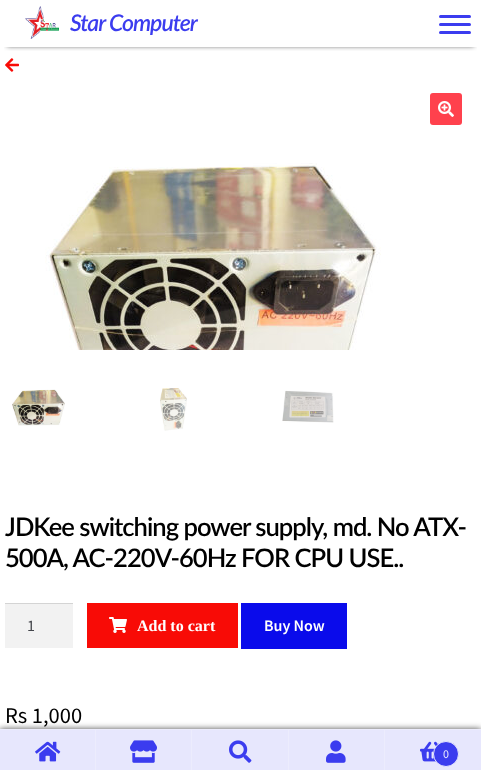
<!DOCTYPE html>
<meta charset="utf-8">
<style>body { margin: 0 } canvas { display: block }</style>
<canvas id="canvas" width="481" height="770"></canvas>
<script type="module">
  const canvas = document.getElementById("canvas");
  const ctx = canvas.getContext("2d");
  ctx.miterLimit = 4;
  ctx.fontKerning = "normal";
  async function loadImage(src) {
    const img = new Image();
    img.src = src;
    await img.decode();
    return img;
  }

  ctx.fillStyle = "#ffffff";
  ctx.fillRect(0, 0, 481, 770);
  ctx.drawImage(await loadImage("img1.png"), 25, 6, 34, 33);
  ctx.save();
  ctx.beginPath();
  ctx.rect(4, 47, 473, 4);
  ctx.clip();
  ctx.fillStyle = "rgba(0, 0, 0, 0.7)";
  ctx.filter = "blur(2.5px)";
  ctx.beginPath();
  ctx.rect(7, 20, 467, 26);
  ctx.fill();
  ctx.filter = "none";
  ctx.restore();
  ctx.fillStyle = "#3b3cef";
  ctx.beginPath();
  ctx.roundRect(439, 15, 32, 3, 1.5);
  ctx.fill();
  ctx.beginPath();
  ctx.roundRect(439, 23, 32, 3, 1.5);
  ctx.fill();
  ctx.beginPath();
  ctx.roundRect(439, 31, 32, 3, 1.5);
  ctx.fill();
  ctx.letterSpacing = "-1px";
  ctx.font = "italic 600 23px Lato";
  ctx.fillText("Star Computer", 70, 31);
  ctx.drawImage(await loadImage("img2.png"), 5, 58, 14, 14);
  ctx.fillStyle = "#ff414d";
  ctx.beginPath();
  ctx.roundRect(430, 93, 32, 32, 3);
  ctx.fill();
  ctx.drawImage(await loadImage("img3.png"), 438, 101, 16, 16);
  ctx.drawImage(await loadImage("img4.png"), 45, 163, 336, 187);
  ctx.drawImage(await loadImage("img5.png"), 12, 389, 53, 37);
  ctx.drawImage(await loadImage("img6.png"), 160, 388, 27, 43);
  ctx.drawImage(await loadImage("img7.png"), 282, 390, 52, 33);
  ctx.font = "600 25.6px Lato";
  ctx.fillStyle = "#000000";
  ctx.fillText("JDKee switching power supply, md. No ATX-", 5, 536);
  ctx.fillText("500A, AC-220V-60Hz FOR CPU USE..", 5, 567);
  ctx.fillStyle = "#f2f2f2";
  ctx.fillRect(5, 604, 68, 44);
  ctx.fillStyle = "#d4d4d4";
  ctx.fillRect(5, 603, 68, 1);
  ctx.letterSpacing = "0px";
  ctx.font = "16px Source Sans Pro";
  ctx.fillStyle = "#43454b";
  ctx.fillText("1", 27, 631);
  ctx.fillStyle = "#f80b06";
  ctx.fillRect(87, 603, 151, 45);
  ctx.drawImage(await loadImage("img8.png"), 109, 617, 18, 16);
  ctx.font = "bold 16px Liberation Serif";
  ctx.fillStyle = "#ffffff";
  ctx.fillText("Add to cart", 137, 631);
  ctx.fillStyle = "#0a0beb";
  ctx.fillRect(241, 603, 106, 46);
  ctx.font = "600 16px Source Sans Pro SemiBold";
  ctx.fillStyle = "#ffffff";
  ctx.fillText("Buy Now", 264, 631);
  ctx.font = "22.5px Source Sans Pro";
  ctx.fillStyle = "#000000";
  ctx.fillText("Rs 1,000", 5, 723);
  ctx.fillStyle = "rgba(0, 0, 0, 0.7)";
  ctx.filter = "blur(3px)";
  ctx.beginPath();
  ctx.rect(0, 729, 481, 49);
  ctx.fill();
  ctx.filter = "none";
  ctx.fillStyle = "#ececfd";
  ctx.fillRect(0, 729, 481, 1);
  ctx.fillStyle = "#e7e7fd";
  ctx.fillRect(0, 730, 95, 40);
  ctx.fillStyle = "#ececfd";
  ctx.fillRect(95, 730, 1, 40);
  ctx.drawImage(await loadImage("img9.png"), 35, 741, 26, 21);
  ctx.fillStyle = "#e7e7fd";
  ctx.fillRect(96, 730, 95, 40);
  ctx.fillStyle = "#ececfd";
  ctx.fillRect(191, 730, 1, 40);
  ctx.drawImage(await loadImage("img10.png"), 130, 740, 27, 23);
  ctx.fillStyle = "#e7e7fd";
  ctx.fillRect(192, 730, 96, 40);
  ctx.fillStyle = "#ececfd";
  ctx.fillRect(288, 730, 1, 40);
  ctx.drawImage(await loadImage("img11.png"), 229, 740, 23, 23);
  ctx.fillStyle = "#e7e7fd";
  ctx.fillRect(289, 730, 95, 40);
  ctx.fillStyle = "#ececfd";
  ctx.fillRect(384, 730, 1, 40);
  ctx.drawImage(await loadImage("img12.png"), 326, 740, 20, 23);
  ctx.fillStyle = "#e7e7fd";
  ctx.fillRect(385, 730, 96, 40);
  ctx.drawImage(await loadImage("img13.png"), 420, 741, 18, 21);
  ctx.fillStyle = "#3b3cef";
  ctx.beginPath();
  ctx.arc(446, 754, 12.5, 0, Math.PI * 2);
  ctx.fill();
  ctx.strokeStyle = "#e7e7fd";
  ctx.stroke();
  ctx.font = "12px Source Sans Pro";
  ctx.fillStyle = "#e7e7fd";
  ctx.fillText("0", 443, 758);
</script>
